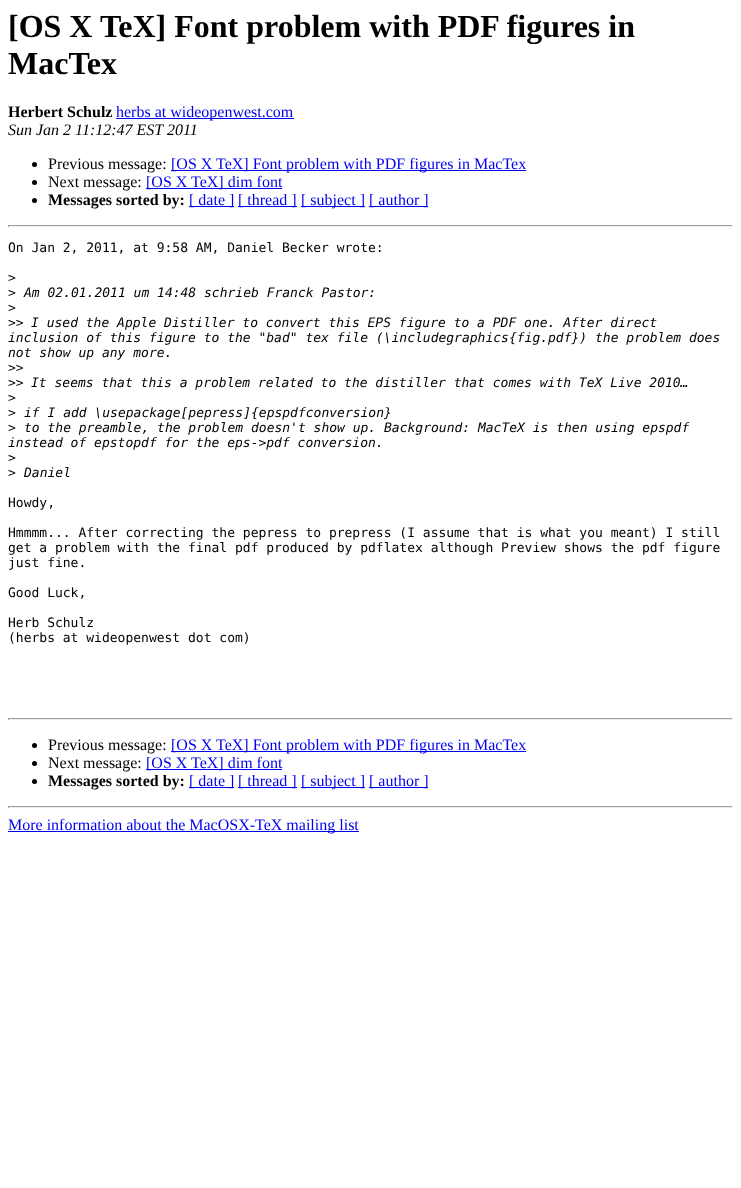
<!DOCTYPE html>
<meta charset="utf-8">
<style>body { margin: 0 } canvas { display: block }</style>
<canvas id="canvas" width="741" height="1188"></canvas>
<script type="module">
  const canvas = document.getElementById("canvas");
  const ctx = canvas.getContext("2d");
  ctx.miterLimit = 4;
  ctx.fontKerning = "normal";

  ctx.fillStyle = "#ffffff";
  ctx.fillRect(0, 0, 741, 1188);
  ctx.font = "bold 32px Liberation Serif";
  ctx.fillStyle = "#000000";
  ctx.fillText("[OS X TeX] Font problem with PDF figures in", 8, 37);
  ctx.fillText("MacTex", 8, 74);
  ctx.font = "bold 16px Liberation Serif";
  ctx.fillText("Herbert Schulz", 8, 117);
  ctx.fillStyle = "#0000ee";
  ctx.fillRect(116, 118, 178, 1);
  ctx.font = "16px Liberation Serif";
  ctx.fillText("herbs at wideopenwest.com", 116, 117);
  ctx.font = "italic 16px Liberation Serif";
  ctx.fillStyle = "#000000";
  ctx.fillText("Sun Jan 2 11:12:47 EST 2011", 8, 135);
  ctx.beginPath();
  ctx.arc(34.5, 164.5, 2.5, 0, Math.PI * 2);
  ctx.fill();
  ctx.font = "16px Liberation Serif";
  ctx.fillText("Previous message:", 48, 169);
  ctx.fillStyle = "#0000ee";
  ctx.fillRect(171, 170, 355, 1);
  ctx.fillText("[OS X TeX] Font problem with PDF figures in MacTex", 171, 169);
  ctx.fillStyle = "#000000";
  ctx.beginPath();
  ctx.arc(34.5, 182.5, 2.5, 0, Math.PI * 2);
  ctx.fill();
  ctx.fillText("Next message:", 48, 187);
  ctx.fillStyle = "#0000ee";
  ctx.fillRect(146, 188, 136, 1);
  ctx.fillText("[OS X TeX] dim font", 146, 187);
  ctx.fillStyle = "#000000";
  ctx.beginPath();
  ctx.arc(34.5, 200.5, 2.5, 0, Math.PI * 2);
  ctx.fill();
  ctx.font = "bold 16px Liberation Serif";
  ctx.fillText("Messages sorted by:", 48, 205);
  ctx.fillStyle = "#0000ee";
  ctx.fillRect(189, 206, 45, 1);
  ctx.font = "16px Liberation Serif";
  ctx.fillText("[ date ]", 189, 205);
  ctx.fillRect(238, 206, 59, 1);
  ctx.fillText("[ thread ]", 238, 205);
  ctx.fillRect(301, 206, 64, 1);
  ctx.fillText("[ subject ]", 301, 205);
  ctx.fillRect(369, 206, 59, 1);
  ctx.fillText("[ author ]", 369, 205);
  ctx.fillStyle = "#9f9f9f";
  ctx.fillRect(8, 225, 725, 1);
  ctx.fillStyle = "#eeeeee";
  ctx.fillRect(732, 225, 1, 2);
  ctx.fillRect(8, 226, 725, 1);
  ctx.fillStyle = "#9f9f9f";
  ctx.fillRect(8, 225, 1, 2);
  ctx.font = "13px DejaVu Sans Mono";
  ctx.fillStyle = "#000000";
  ctx.fillText("On Jan 2, 2011, at 9:58 AM, Daniel Becker wrote:", 8, 252);
  ctx.fillText(">", 8, 282);
  ctx.fillText(">", 8, 297);
  ctx.font = "italic 13px DejaVu Sans Mono";
  ctx.fillText("Am 02.01.2011 um 14:48 schrieb Franck Pastor:", 24, 297);
  ctx.font = "13px DejaVu Sans Mono";
  ctx.fillText(">", 8, 312);
  ctx.fillText(">>", 8, 327);
  ctx.font = "italic 13px DejaVu Sans Mono";
  ctx.fillText("I used the Apple Distiller to convert this EPS figure to a PDF one. After direct", 31, 327);
  ctx.fillText("inclusion of this figure to the \"bad\" tex file (\\includegraphics{fig.pdf}) the problem does", 8, 342);
  ctx.fillText("not show up any more.", 8, 357);
  ctx.font = "13px DejaVu Sans Mono";
  ctx.fillText(">>", 8, 372);
  ctx.fillText(">>", 8, 387);
  ctx.font = "italic 13px DejaVu Sans Mono";
  ctx.fillText("It seems that this a problem related to the distiller that comes with TeX Live 2010…", 31, 387);
  ctx.font = "13px DejaVu Sans Mono";
  ctx.fillText(">", 8, 402);
  ctx.fillText(">", 8, 417);
  ctx.font = "italic 13px DejaVu Sans Mono";
  ctx.fillText("if I add \\usepackage[pepress]{epspdfconversion}", 24, 417);
  ctx.font = "13px DejaVu Sans Mono";
  ctx.fillText(">", 8, 432);
  ctx.font = "italic 13px DejaVu Sans Mono";
  ctx.fillText("to the preamble, the problem doesn't show up. Background: MacTeX is then using epspdf", 24, 432);
  ctx.fillText("instead of epstopdf for the eps->pdf conversion.", 8, 447);
  ctx.font = "13px DejaVu Sans Mono";
  ctx.fillText(">", 8, 462);
  ctx.fillText(">", 8, 477);
  ctx.font = "italic 13px DejaVu Sans Mono";
  ctx.fillText("Daniel", 24, 477);
  ctx.font = "13px DejaVu Sans Mono";
  ctx.fillText("Howdy,", 8, 507);
  ctx.fillText("Hmmmm... After correcting the pepress to prepress (I assume that is what you meant) I still", 8, 537);
  ctx.fillText("get a problem with the final pdf produced by pdflatex although Preview shows the pdf figure", 8, 552);
  ctx.fillText("just fine.", 8, 567);
  ctx.fillText("Good Luck,", 8, 597);
  ctx.fillText("Herb Schulz", 8, 627);
  ctx.fillText("(herbs at wideopenwest dot com)", 8, 642);
  ctx.fillStyle = "#9f9f9f";
  ctx.fillRect(8, 718, 725, 1);
  ctx.fillStyle = "#eeeeee";
  ctx.fillRect(732, 718, 1, 2);
  ctx.fillRect(8, 719, 725, 1);
  ctx.fillStyle = "#9f9f9f";
  ctx.fillRect(8, 718, 1, 2);
  ctx.fillStyle = "#000000";
  ctx.beginPath();
  ctx.arc(34.5, 745.5, 2.5, 0, Math.PI * 2);
  ctx.fill();
  ctx.font = "16px Liberation Serif";
  ctx.fillText("Previous message:", 48, 750);
  ctx.fillStyle = "#0000ee";
  ctx.fillRect(171, 751, 355, 1);
  ctx.fillText("[OS X TeX] Font problem with PDF figures in MacTex", 171, 750);
  ctx.fillStyle = "#000000";
  ctx.beginPath();
  ctx.arc(34.5, 763.5, 2.5, 0, Math.PI * 2);
  ctx.fill();
  ctx.fillText("Next message:", 48, 768);
  ctx.fillStyle = "#0000ee";
  ctx.fillRect(146, 769, 136, 1);
  ctx.fillText("[OS X TeX] dim font", 146, 768);
  ctx.fillStyle = "#000000";
  ctx.beginPath();
  ctx.arc(34.5, 781.5, 2.5, 0, Math.PI * 2);
  ctx.fill();
  ctx.font = "bold 16px Liberation Serif";
  ctx.fillText("Messages sorted by:", 48, 786);
  ctx.fillStyle = "#0000ee";
  ctx.fillRect(189, 787, 45, 1);
  ctx.font = "16px Liberation Serif";
  ctx.fillText("[ date ]", 189, 786);
  ctx.fillRect(238, 787, 59, 1);
  ctx.fillText("[ thread ]", 238, 786);
  ctx.fillRect(301, 787, 64, 1);
  ctx.fillText("[ subject ]", 301, 786);
  ctx.fillRect(369, 787, 59, 1);
  ctx.fillText("[ author ]", 369, 786);
  ctx.fillStyle = "#9f9f9f";
  ctx.fillRect(8, 806, 725, 1);
  ctx.fillStyle = "#eeeeee";
  ctx.fillRect(732, 806, 1, 2);
  ctx.fillRect(8, 807, 725, 1);
  ctx.fillStyle = "#9f9f9f";
  ctx.fillRect(8, 806, 1, 2);
  ctx.fillStyle = "#0000ee";
  ctx.fillRect(8, 831, 351, 1);
  ctx.fillText("More information about the MacOSX-TeX mailing list", 8, 830);
</script>
